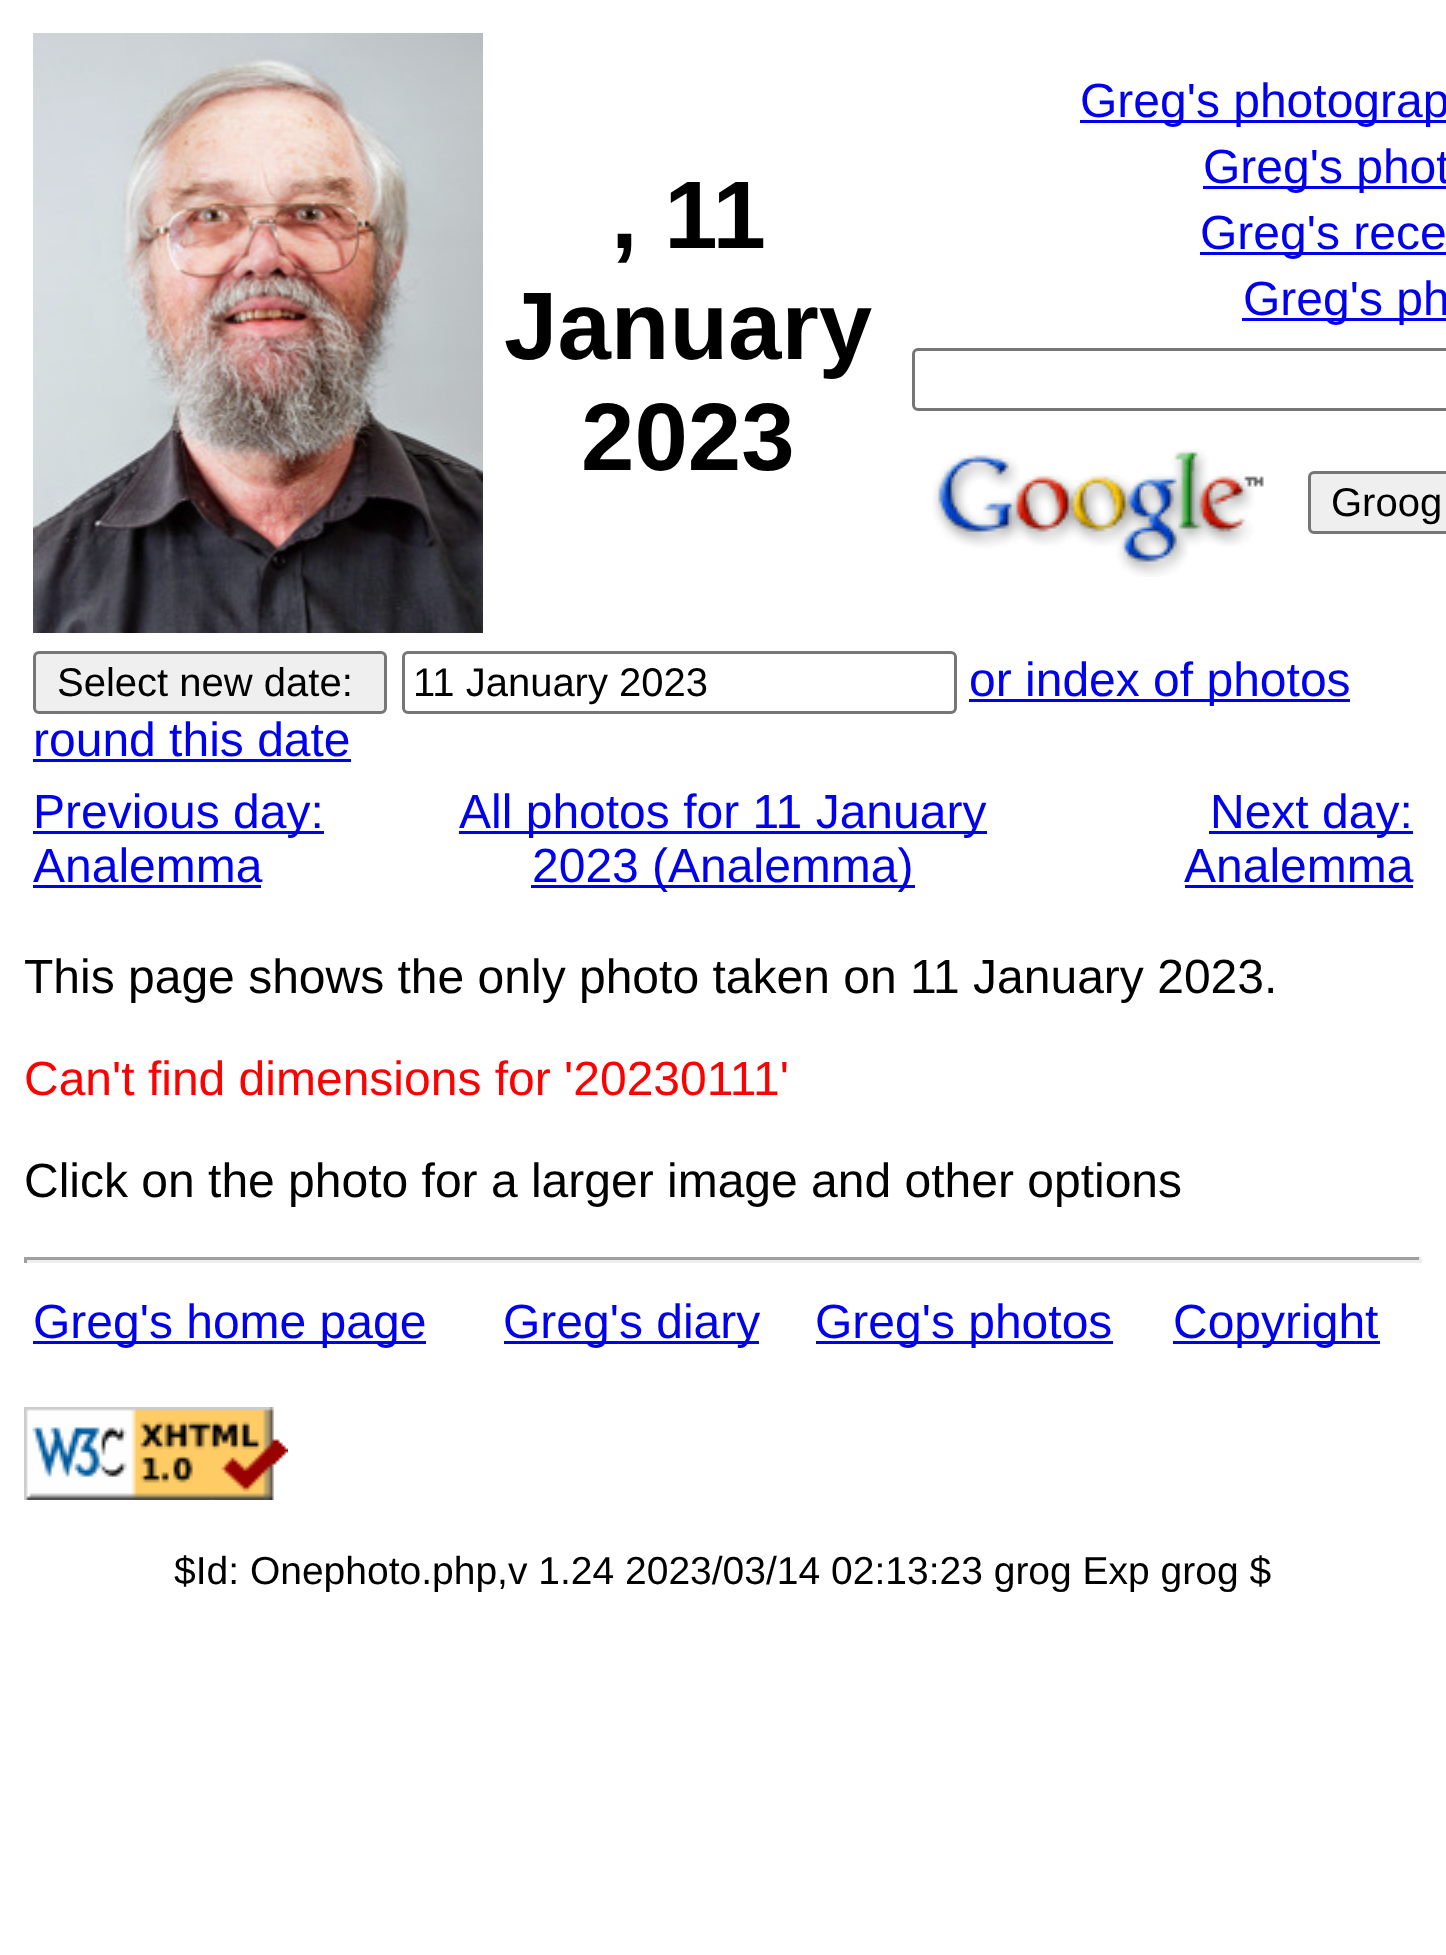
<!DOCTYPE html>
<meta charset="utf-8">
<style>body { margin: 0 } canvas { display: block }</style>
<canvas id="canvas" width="1446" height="1955"></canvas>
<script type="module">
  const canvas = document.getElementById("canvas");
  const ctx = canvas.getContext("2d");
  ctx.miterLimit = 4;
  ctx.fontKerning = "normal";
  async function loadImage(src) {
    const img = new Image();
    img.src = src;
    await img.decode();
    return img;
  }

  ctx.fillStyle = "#ffffff";
  ctx.fillRect(0, 0, 1446, 1955);
  ctx.drawImage(await loadImage("img1.png"), 33, 33, 450, 600);
  ctx.font = "bold 96px Liberation Sans";
  ctx.fillStyle = "#000000";
  ctx.fillText(", 11", 611, 248);
  ctx.fillText("January", 504, 359);
  ctx.fillText("2023", 581, 470);
  ctx.fillStyle = "#0000ee";
  ctx.fillRect(1080, 120, 366, 3);
  ctx.font = "48px Liberation Sans";
  ctx.fillText("Greg's photograp", 1080, 117);
  ctx.fillRect(1203, 186, 243, 3);
  ctx.fillText("Greg's phot", 1203, 183);
  ctx.fillRect(1200, 252, 246, 3);
  ctx.fillText("Greg's rece", 1200, 249);
  ctx.fillRect(1242, 318, 204, 3);
  ctx.fillText("Greg's ph", 1243, 315);
  ctx.beginPath();
  ctx.roundRect(913.5, 349.5, 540, 60, 4.5);
  ctx.strokeStyle = "#767676";
  ctx.lineWidth = 3;
  ctx.stroke();
  ctx.drawImage(await loadImage("img2.png"), 932, 449, 332, 128);
  ctx.fillStyle = "#efefef";
  ctx.beginPath();
  ctx.roundRect(1309.5, 472.5, 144, 60, 4.5);
  ctx.fill();
  ctx.stroke();
  ctx.font = "40px Liberation Sans";
  ctx.fillStyle = "#000000";
  ctx.fillText("Groog", 1331, 516);
  ctx.fillStyle = "#efefef";
  ctx.beginPath();
  ctx.roundRect(34.5, 652.5, 351, 60, 4.5);
  ctx.fill();
  ctx.stroke();
  ctx.fillStyle = "#000000";
  ctx.fillText("Select new date:", 57, 696);
  ctx.beginPath();
  ctx.roundRect(403.5, 652.5, 552, 60, 4.5);
  ctx.stroke();
  ctx.fillText("11 January 2023", 413, 696);
  ctx.fillStyle = "#0000ee";
  ctx.fillRect(969, 699, 381, 3);
  ctx.font = "48px Liberation Sans";
  ctx.fillText("or index of photos", 969, 696);
  ctx.fillText("round this date", 33, 756);
  ctx.fillRect(33, 759, 318, 3);
  ctx.fillRect(33, 831, 291, 3);
  ctx.fillText("Previous day:", 33, 828);
  ctx.fillText("Analemma", 33, 882);
  ctx.fillRect(33, 885, 228, 3);
  ctx.fillRect(459, 831, 528, 3);
  ctx.fillText("All photos for 11 January", 459, 828);
  ctx.fillRect(531, 885, 384, 3);
  ctx.fillText("2023 (Analemma)", 532, 882);
  ctx.fillRect(1209, 831, 204, 3);
  ctx.fillText("Next day:", 1210, 828);
  ctx.fillText("Analemma", 1184, 882);
  ctx.fillRect(1185, 885, 228, 3);
  ctx.fillStyle = "#000000";
  ctx.fillText("This page shows the only photo taken on 11 January 2023.", 24, 993);
  ctx.fillStyle = "#ff0000";
  ctx.fillText("Can't find dimensions for '20230111'", 24, 1095);
  ctx.fillStyle = "#000000";
  ctx.fillText("Click on the photo for a larger image and other options", 24, 1197);
  ctx.fillStyle = "#9f9f9f";
  ctx.fillRect(24, 1257, 1398, 3);
  ctx.fillStyle = "#eeeeee";
  ctx.fillRect(1419, 1257, 3, 6);
  ctx.fillRect(24, 1260, 1398, 3);
  ctx.fillStyle = "#9f9f9f";
  ctx.fillRect(24, 1257, 3, 6);
  ctx.fillStyle = "#0000ee";
  ctx.fillRect(33, 1341, 393, 3);
  ctx.fillText("Greg's home page", 33, 1338);
  ctx.fillRect(504, 1341, 255, 3);
  ctx.fillText("Greg's diary", 503, 1338);
  ctx.fillRect(816, 1341, 297, 3);
  ctx.fillText("Greg's photos", 815, 1338);
  ctx.fillRect(1173, 1341, 207, 3);
  ctx.fillText("Copyright", 1173, 1338);
  ctx.drawImage(await loadImage("img3.png"), 24, 1407, 264, 93);
  ctx.font = "39px Liberation Sans";
  ctx.fillStyle = "#000000";
  ctx.fillText("$Id: Onephoto.php,v 1.24 2023/03/14 02:13:23 grog Exp grog $", 174, 1584);
</script>
